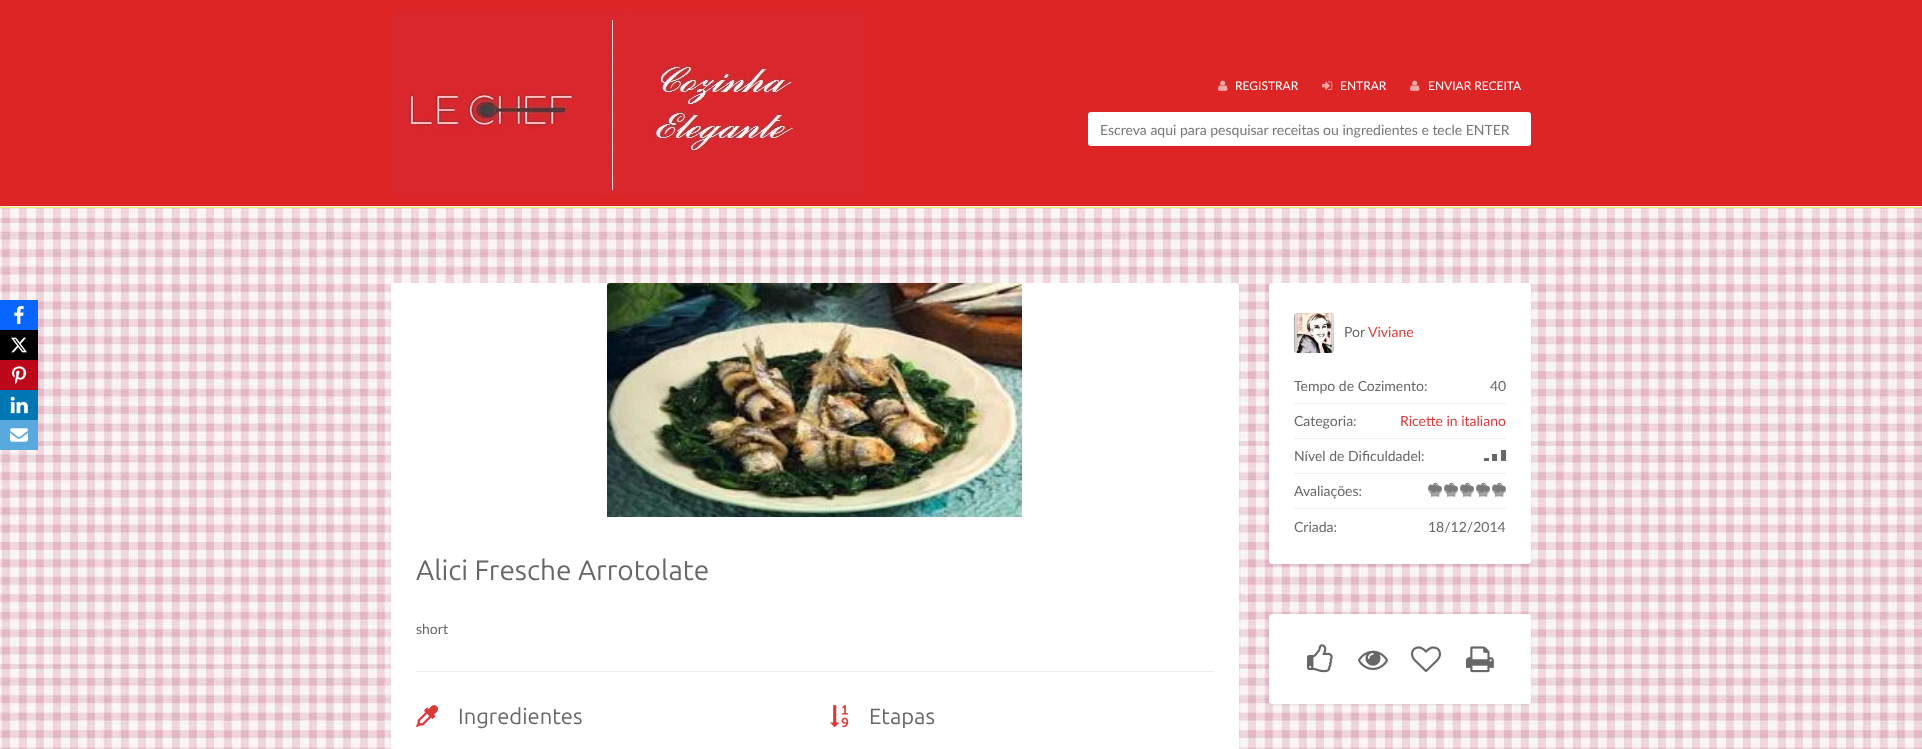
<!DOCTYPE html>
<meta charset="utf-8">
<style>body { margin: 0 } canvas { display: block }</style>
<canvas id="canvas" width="1922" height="749"></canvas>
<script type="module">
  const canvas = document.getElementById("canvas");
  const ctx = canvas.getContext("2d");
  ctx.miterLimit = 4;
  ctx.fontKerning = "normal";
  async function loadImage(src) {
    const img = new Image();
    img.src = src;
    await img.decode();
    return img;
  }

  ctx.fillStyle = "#ffffff";
  ctx.fillRect(0, 0, 1922, 749);
  ctx.drawImage(await loadImage("img1.png"), 0, 206, 1922, 543);
  ctx.fillStyle = "#dd2525";
  ctx.fillRect(0, 0, 1922, 206);
  ctx.drawImage(await loadImage("img2.png"), 391, 10, 474, 186);
  ctx.drawImage(await loadImage("img3.png"), 1218, 80, 10, 11);
  ctx.font = "12px Lato";
  ctx.fillStyle = "#ffffff";
  ctx.fillText("REGISTRAR", 1235, 90);
  ctx.drawImage(await loadImage("img4.png"), 1322, 81, 11, 9);
  ctx.fillText("ENTRAR", 1340, 90);
  ctx.drawImage(await loadImage("img3.png"), 1410, 80, 10, 11);
  ctx.fillText("ENVIAR RECEITA", 1428, 90);
  ctx.beginPath();
  ctx.roundRect(1088, 112, 443, 34, 3);
  ctx.fill();
  ctx.font = "14px Lato";
  ctx.fillStyle = "#777777";
  ctx.fillText("Escreva aqui para pesquisar receitas ou ingredientes e tecle ENTER", 1100, 135);
  ctx.fillStyle = "#eded5e";
  ctx.beginPath();
  ctx.roundRect(0, 206, 1922, 2, 1);
  ctx.fill();
  ctx.fillStyle = "#eeeeee";
  ctx.fillRect(1, 206, 1921, 1);
  ctx.fillStyle = "#0866ff";
  ctx.fillRect(0, 300, 38, 30);
  ctx.drawImage(await loadImage("img5.png"), 14, 306, 10, 18);
  ctx.fillStyle = "#000000";
  ctx.fillRect(0, 330, 38, 30);
  ctx.drawImage(await loadImage("img6.png"), 11, 337, 16, 16);
  ctx.fillStyle = "#bd081c";
  ctx.fillRect(0, 360, 38, 30);
  ctx.drawImage(await loadImage("img7.png"), 12, 366, 15, 18);
  ctx.fillStyle = "#0077b5";
  ctx.fillRect(0, 390, 38, 30);
  ctx.drawImage(await loadImage("img8.png"), 10, 396, 18, 18);
  ctx.fillStyle = "#58a9de";
  ctx.fillRect(0, 420, 38, 30);
  ctx.drawImage(await loadImage("img9.png"), 10, 428, 18, 14);
  ctx.fillStyle = "rgba(0, 0, 0, 0.1)";
  ctx.filter = "blur(1px)";
  ctx.beginPath();
  ctx.roundRect(1269, 284, 262, 281, 3);
  ctx.fill();
  ctx.filter = "none";
  ctx.fillStyle = "#ffffff";
  ctx.beginPath();
  ctx.roundRect(1269, 283, 262, 281, 3);
  ctx.fill();
  ctx.drawImage(await loadImage("img10.png"), 1294, 313, 40, 40);
  ctx.fillStyle = "#676767";
  ctx.fillText("Por", 1344, 337);
  ctx.fillStyle = "#dd3939";
  ctx.fillText("Viviane", 1368, 337);
  ctx.fillStyle = "#eeeeee";
  ctx.fillRect(1294, 403, 212, 1);
  ctx.fillStyle = "#676767";
  ctx.fillText("Tempo de Cozimento:", 1294, 391);
  ctx.fillText("40", 1490, 391);
  ctx.fillStyle = "#eeeeee";
  ctx.fillRect(1294, 438, 212, 1);
  ctx.fillStyle = "#676767";
  ctx.fillText("Categoria:", 1294, 426);
  ctx.fillStyle = "#dd3939";
  ctx.fillText("Ricette in italiano", 1400, 426);
  ctx.fillStyle = "#eeeeee";
  ctx.fillRect(1294, 473, 212, 1);
  ctx.fillStyle = "#676767";
  ctx.fillText("Nível de Dificuldadel:", 1294, 461);
  ctx.fillRect(1484, 458, 5, 3);
  ctx.fillRect(1492, 454, 5, 7);
  ctx.fillRect(1501, 450, 5, 11);
  ctx.fillStyle = "#eeeeee";
  ctx.fillRect(1294, 508, 212, 1);
  ctx.fillStyle = "#676767";
  ctx.fillText("Avaliações:", 1294, 496);
  ctx.drawImage(await loadImage("img11.png"), 1428, 482, 14, 15);
  ctx.drawImage(await loadImage("img11.png"), 1444, 482, 14, 15);
  ctx.drawImage(await loadImage("img11.png"), 1460, 482, 14, 15);
  ctx.drawImage(await loadImage("img11.png"), 1476, 482, 14, 15);
  ctx.drawImage(await loadImage("img11.png"), 1492, 482, 14, 15);
  ctx.fillText("Criada:", 1294, 532);
  ctx.fillText("18/12/2014", 1428, 532);
  ctx.fillStyle = "rgba(0, 0, 0, 0.1)";
  ctx.filter = "blur(1px)";
  ctx.beginPath();
  ctx.roundRect(1269, 615, 262, 90, 3);
  ctx.fill();
  ctx.filter = "none";
  ctx.fillStyle = "#ffffff";
  ctx.beginPath();
  ctx.roundRect(1269, 614, 262, 90, 3);
  ctx.fill();
  ctx.drawImage(await loadImage("img12.png"), 1307, 644, 26, 29);
  ctx.drawImage(await loadImage("img13.png"), 1358, 650, 30, 20);
  ctx.drawImage(await loadImage("img14.png"), 1411, 646, 30, 27);
  ctx.drawImage(await loadImage("img15.png"), 1466, 646, 28, 27);
  ctx.fillStyle = "rgba(0, 0, 0, 0.1)";
  ctx.filter = "blur(1px)";
  ctx.beginPath();
  ctx.roundRect(391, 284, 848, 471, 3);
  ctx.fill();
  ctx.filter = "none";
  ctx.fillStyle = "#ffffff";
  ctx.beginPath();
  ctx.roundRect(391, 283, 848, 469, 3);
  ctx.fill();
  ctx.drawImage(await loadImage("img16.png"), 607, 283, 415, 234);
  ctx.font = "28px Ubuntu";
  ctx.fillStyle = "#676767";
  ctx.fillText("Alici Fresche Arrotolate", 416, 580);
  ctx.font = "14px Lato";
  ctx.fillText("short", 416, 634);
  ctx.fillStyle = "#eeeeee";
  ctx.fillRect(416, 671, 798, 1);
  ctx.drawImage(await loadImage("img17.png"), 416, 705, 22, 23);
  ctx.font = "22px Ubuntu";
  ctx.fillStyle = "#676767";
  ctx.fillText("Ingredientes", 458, 724);
  ctx.drawImage(await loadImage("img18.png"), 830, 705, 19, 23);
  ctx.fillText("Etapas", 869, 724);
</script>
